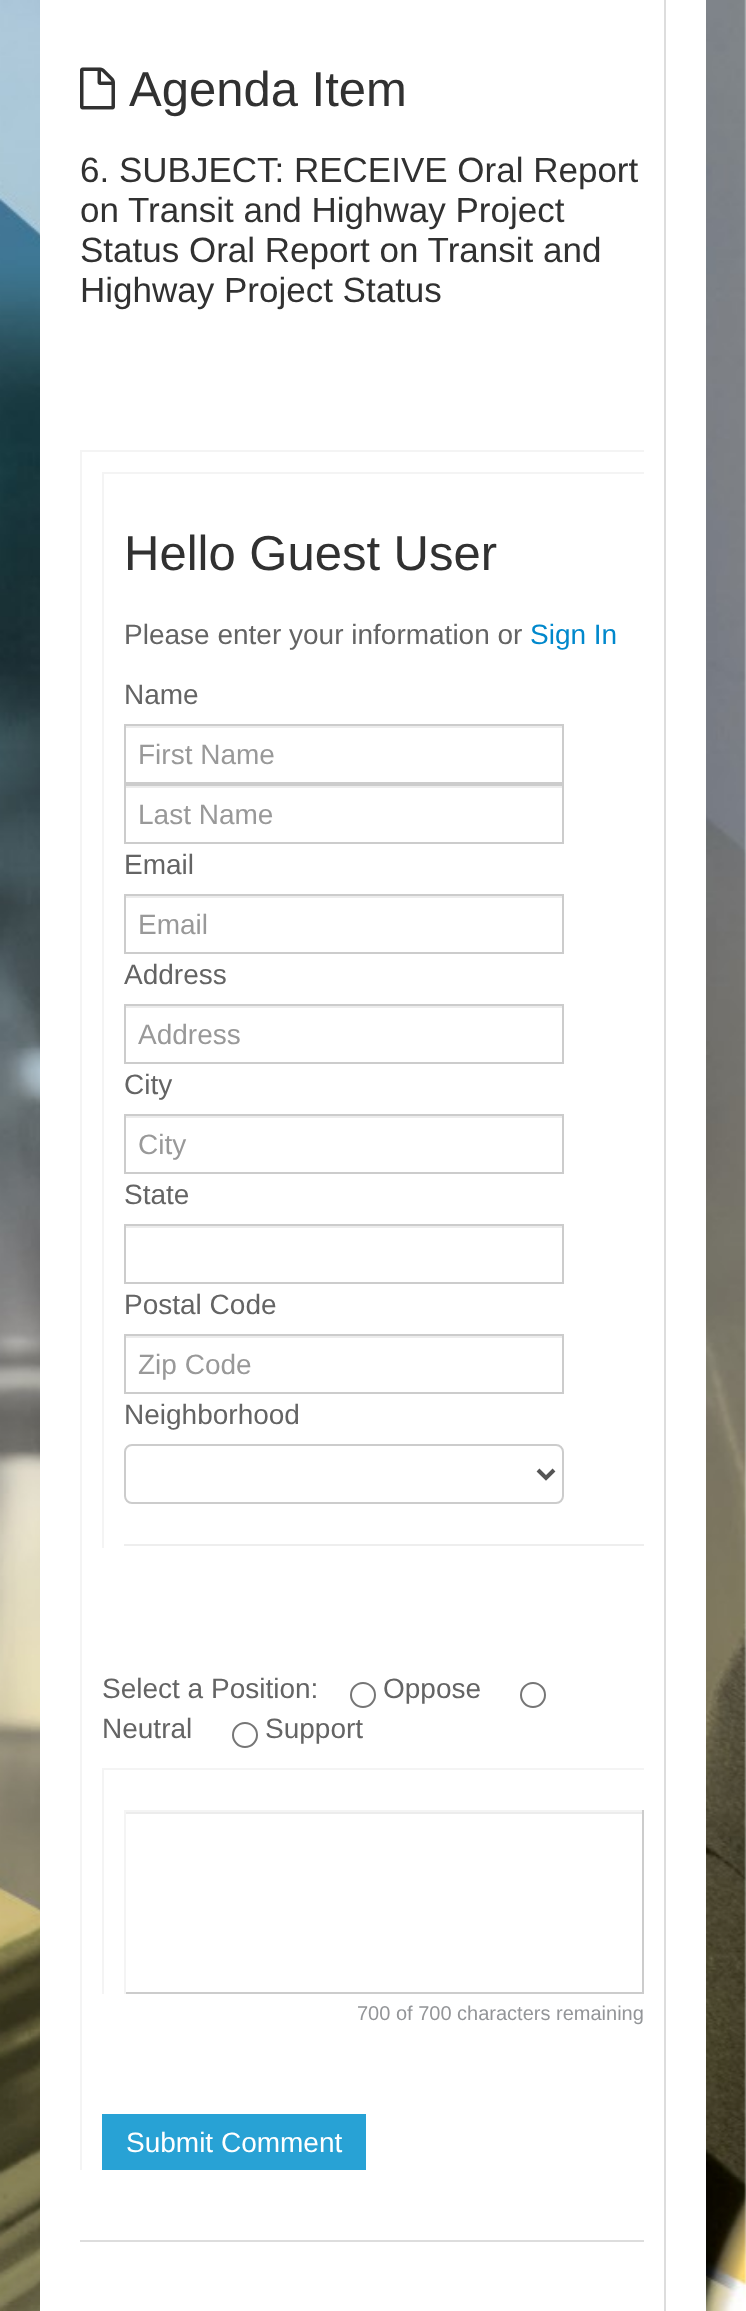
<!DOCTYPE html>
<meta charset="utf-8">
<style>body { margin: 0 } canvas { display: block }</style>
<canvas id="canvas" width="746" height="2311"></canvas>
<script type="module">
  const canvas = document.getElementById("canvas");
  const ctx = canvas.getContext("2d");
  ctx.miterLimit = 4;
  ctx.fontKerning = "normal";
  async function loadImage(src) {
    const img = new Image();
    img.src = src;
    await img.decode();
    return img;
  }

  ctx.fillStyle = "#ffffff";
  ctx.fillRect(0, 0, 746, 2311);
  ctx.drawImage(await loadImage("img1.png"), 0, 0, 746, 2311);
  ctx.fillRect(40, 0, 666, 2311);
  ctx.fillStyle = "#dddddd";
  ctx.fillRect(664, 0, 2, 2311);
  ctx.drawImage(await loadImage("img2.png"), 80, 67, 35, 43);
  ctx.font = "49px Liberation Sans";
  ctx.fillStyle = "#313131";
  ctx.fillText("Agenda Item", 129, 106);
  ctx.font = "35px Liberation Sans";
  ctx.fillText("6. SUBJECT: RECEIVE Oral Report", 80, 182);
  ctx.fillText("on Transit and Highway Project", 80, 222);
  ctx.fillText("Status Oral Report on Transit and", 80, 262);
  ctx.fillText("Highway Project Status", 80, 302);
  ctx.fillStyle = "#dddddd";
  ctx.fillRect(80, 2240, 564, 2);
  ctx.fillStyle = "#f4f4f4";
  ctx.fillRect(80, 450, 564, 2);
  ctx.fillRect(80, 450, 2, 1720);
  ctx.fillRect(102, 472, 542, 2);
  ctx.fillRect(102, 472, 2, 1076);
  ctx.font = "49px Liberation Sans";
  ctx.fillStyle = "#313131";
  ctx.fillText("Hello Guest User", 124, 570);
  ctx.font = "28px Liberation Sans";
  ctx.fillStyle = "#646464";
  ctx.fillText("Please enter your information or", 124, 644);
  ctx.fillStyle = "#0088cc";
  ctx.fillText("Sign In", 530, 644);
  ctx.fillStyle = "#646464";
  ctx.fillText("Name", 124, 704);
  ctx.fillStyle = "#ececec";
  ctx.fillRect(126, 726, 436, 2);
  ctx.strokeStyle = "#cccccc";
  ctx.lineWidth = 2;
  ctx.strokeRect(125, 725, 438, 58);
  ctx.fillStyle = "#999999";
  ctx.fillText("First Name", 138, 764);
  ctx.fillStyle = "#ececec";
  ctx.fillRect(126, 786, 436, 2);
  ctx.strokeRect(125, 785, 438, 58);
  ctx.fillStyle = "#999999";
  ctx.fillText("Last Name", 138, 824);
  ctx.fillStyle = "#646464";
  ctx.fillText("Email", 124, 874);
  ctx.fillStyle = "#ececec";
  ctx.fillRect(126, 896, 436, 2);
  ctx.strokeRect(125, 895, 438, 58);
  ctx.fillStyle = "#999999";
  ctx.fillText("Email", 138, 934);
  ctx.fillStyle = "#646464";
  ctx.fillText("Address", 124, 984);
  ctx.fillStyle = "#ececec";
  ctx.fillRect(126, 1006, 436, 2);
  ctx.strokeRect(125, 1005, 438, 58);
  ctx.fillStyle = "#999999";
  ctx.fillText("Address", 138, 1044);
  ctx.fillStyle = "#646464";
  ctx.fillText("City", 124, 1094);
  ctx.fillStyle = "#ececec";
  ctx.fillRect(126, 1116, 436, 2);
  ctx.strokeRect(125, 1115, 438, 58);
  ctx.fillStyle = "#999999";
  ctx.fillText("City", 138, 1154);
  ctx.fillStyle = "#646464";
  ctx.fillText("State", 124, 1204);
  ctx.fillStyle = "#ececec";
  ctx.fillRect(126, 1226, 436, 2);
  ctx.strokeRect(125, 1225, 438, 58);
  ctx.fillStyle = "#646464";
  ctx.fillText("Postal Code", 124, 1314);
  ctx.fillStyle = "#ececec";
  ctx.fillRect(126, 1336, 436, 2);
  ctx.strokeRect(125, 1335, 438, 58);
  ctx.fillStyle = "#999999";
  ctx.fillText("Zip Code", 138, 1374);
  ctx.fillStyle = "#646464";
  ctx.fillText("Neighborhood", 124, 1424);
  ctx.beginPath();
  ctx.roundRect(125, 1445, 438, 58, 7);
  ctx.stroke();
  ctx.beginPath();
  ctx.moveTo(538, 1470);
  ctx.lineTo(546, 1478);
  ctx.lineTo(554, 1470);
  ctx.strokeStyle = "#555555";
  ctx.lineWidth = 4;
  ctx.stroke();
  ctx.fillStyle = "#eeeeee";
  ctx.fillRect(124, 1544, 520, 2);
  ctx.fillStyle = "#646464";
  ctx.fillText("Select a Position:", 102, 1698);
  ctx.beginPath();
  ctx.arc(363, 1695, 12, 0, Math.PI * 2);
  ctx.strokeStyle = "#767676";
  ctx.lineWidth = 2;
  ctx.stroke();
  ctx.fillText("Oppose", 383, 1698);
  ctx.beginPath();
  ctx.arc(533, 1695, 12, 0, Math.PI * 2);
  ctx.stroke();
  ctx.fillText("Neutral", 102, 1738);
  ctx.beginPath();
  ctx.arc(245, 1735, 12, 0, Math.PI * 2);
  ctx.stroke();
  ctx.fillText("Support", 265, 1738);
  ctx.fillStyle = "#f4f4f4";
  ctx.fillRect(102, 1768, 542, 2);
  ctx.fillRect(102, 1768, 2, 226);
  ctx.fillStyle = "#ececec";
  ctx.fillRect(126, 1812, 516, 2);
  ctx.fillStyle = "#f4f4f4";
  ctx.fillRect(124, 1810, 520, 2);
  ctx.fillStyle = "#cccccc";
  ctx.fillRect(642, 1810, 2, 184);
  ctx.fillRect(124, 1992, 520, 2);
  ctx.fillStyle = "#f4f4f4";
  ctx.fillRect(124, 1810, 2, 184);
  ctx.font = "20px Liberation Sans";
  ctx.fillStyle = "#939598";
  ctx.fillText("700 of 700 characters remaining", 357, 2020);
  ctx.fillStyle = "#28a2d5";
  ctx.fillRect(102, 2114, 264, 56);
  ctx.font = "28px Liberation Sans";
  ctx.fillStyle = "#ffffff";
  ctx.fillText("Submit Comment", 126, 2152);
</script>
